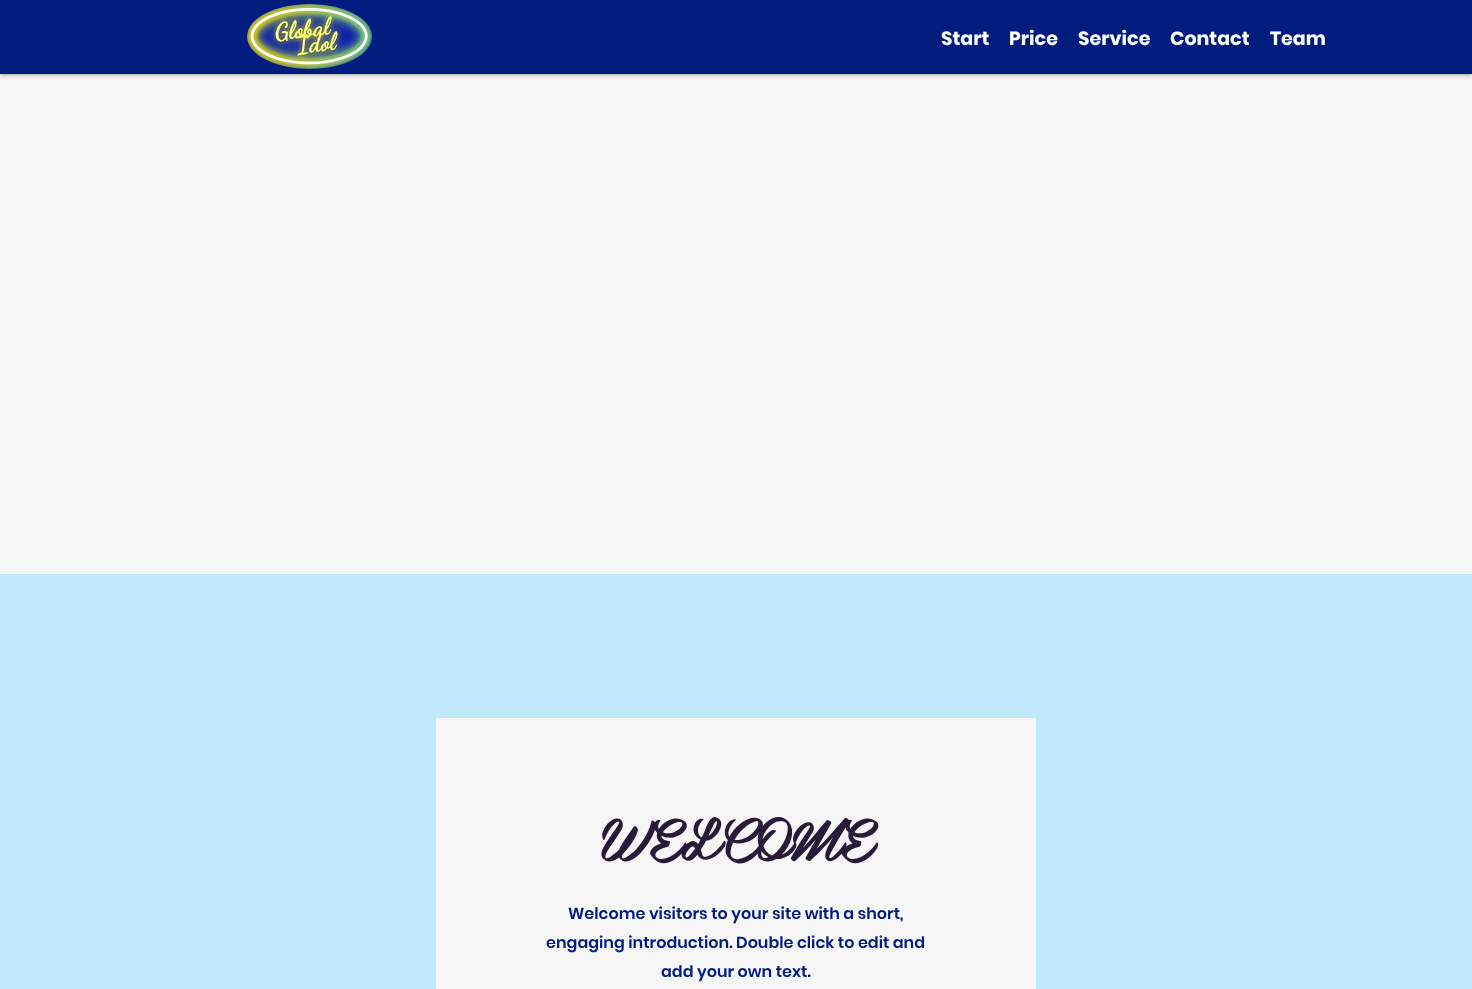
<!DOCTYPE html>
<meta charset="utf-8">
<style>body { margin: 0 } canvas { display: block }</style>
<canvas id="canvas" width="1472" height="989"></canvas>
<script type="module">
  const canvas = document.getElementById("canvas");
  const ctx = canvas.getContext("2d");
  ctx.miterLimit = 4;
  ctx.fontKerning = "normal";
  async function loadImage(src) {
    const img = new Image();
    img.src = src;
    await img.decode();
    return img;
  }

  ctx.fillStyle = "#f6f6f6";
  ctx.fillRect(0, 0, 1472, 989);
  ctx.fillStyle = "rgba(0, 0, 0, 0.5)";
  ctx.filter = "blur(2.5px)";
  ctx.beginPath();
  ctx.rect(0, 0, 1472, 74);
  ctx.fill();
  ctx.filter = "none";
  ctx.fillStyle = "#001c7f";
  ctx.fillRect(0, 0, 1472, 74);
  ctx.drawImage(await loadImage("img1.png"), 247, 4, 125, 65);
  ctx.font = "bold 19px Poppins";
  ctx.fillStyle = "#ffffff";
  ctx.fillText("Start", 941, 45);
  ctx.fillText("Price", 1009, 45);
  ctx.fillText("Service", 1078, 45);
  ctx.fillText("Contact", 1170, 45);
  ctx.fillText("Team", 1270, 45);
  ctx.fillStyle = "#bde9fb";
  ctx.fillRect(0, 574, 1472, 415);
  ctx.fillStyle = "#f6f6f6";
  ctx.fillRect(436, 718, 600, 271);
  ctx.font = "56px 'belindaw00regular'";
  ctx.fillStyle = "#281a39";
  ctx.fillText("WELCOME", 600, 858);
  ctx.font = "600 16px Poppins";
  ctx.fillStyle = "#001c7f";
  ctx.fillText("Welcome visitors to your site with a short,", 568, 919);
  ctx.fillText("engaging introduction. Double click to edit and", 546, 948);
  ctx.fillText("add your own text.", 661, 977);
</script>
